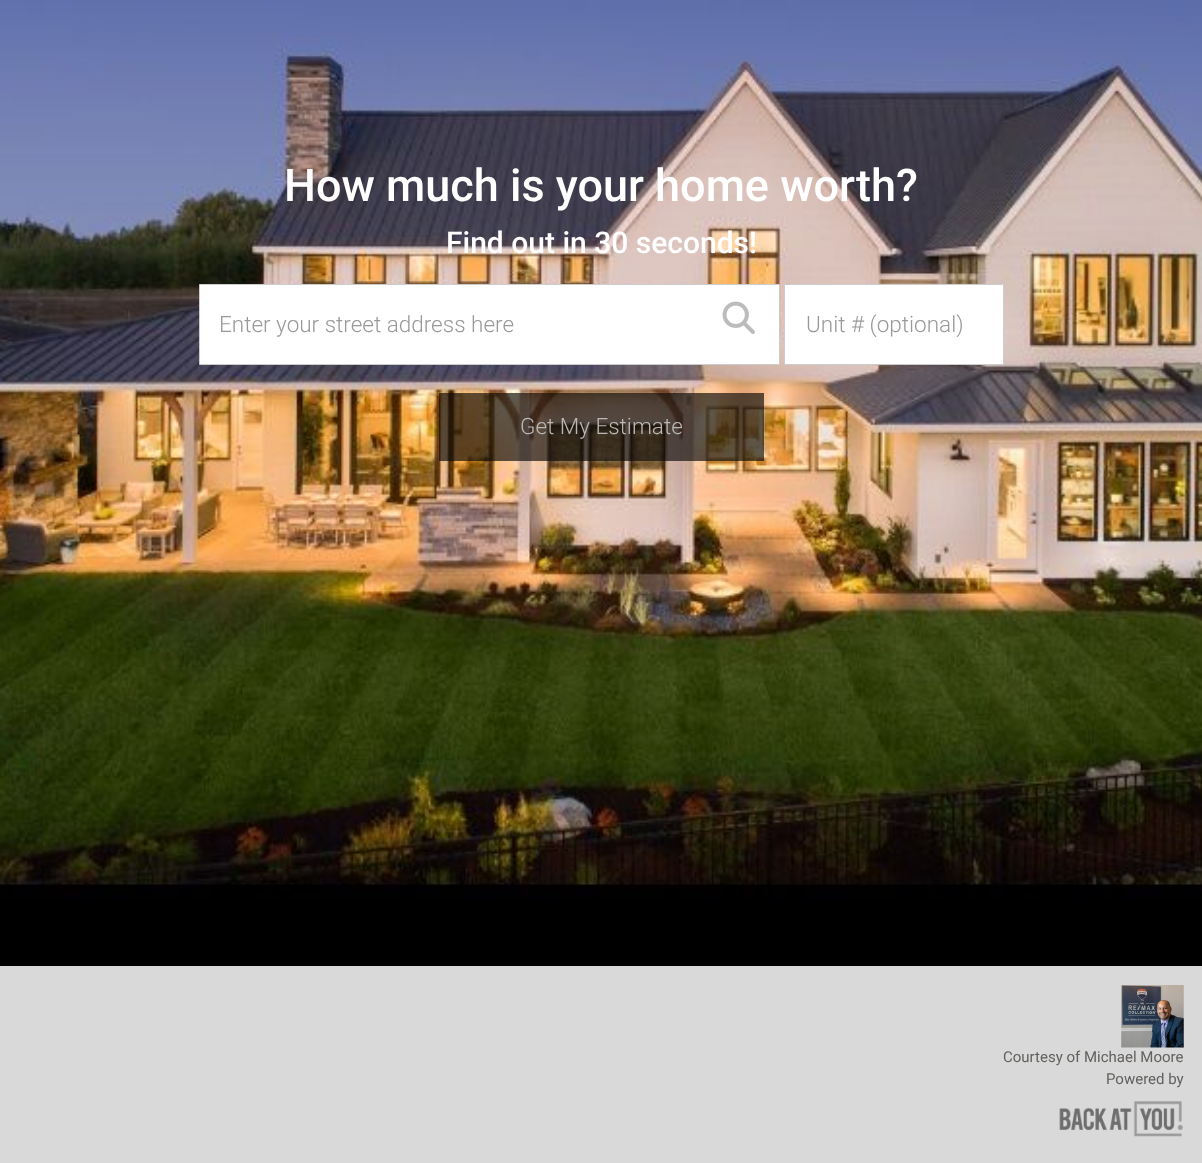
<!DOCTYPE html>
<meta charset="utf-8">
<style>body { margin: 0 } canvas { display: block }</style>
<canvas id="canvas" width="1202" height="1163"></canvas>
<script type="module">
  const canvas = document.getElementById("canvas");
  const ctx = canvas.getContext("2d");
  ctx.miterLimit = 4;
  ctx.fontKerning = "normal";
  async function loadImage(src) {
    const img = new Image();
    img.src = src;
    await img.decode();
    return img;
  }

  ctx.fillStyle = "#ffffff";
  ctx.fillRect(0, 0, 1202, 1163);
  ctx.drawImage(await loadImage("img1.png"), 0, 0, 1202, 966);
  ctx.font = "500 45px Roboto";
  ctx.fillText("How much is your home worth?", 284, 201);
  ctx.font = "500 30px Roboto";
  ctx.fillText("Find out in 30 seconds!", 446, 253);
  ctx.beginPath();
  ctx.rect(199.5, 284.5, 580, 80);
  ctx.fill();
  ctx.strokeStyle = "#cccccc";
  ctx.stroke();
  ctx.font = "300 22.5px Roboto";
  ctx.fillStyle = "#999999";
  ctx.fillText("Enter your street address here", 219, 332);
  ctx.drawImage(await loadImage("img2.png"), 722, 301, 33, 33);
  ctx.fillStyle = "#ffffff";
  ctx.beginPath();
  ctx.rect(784.5, 284.5, 219, 80);
  ctx.fill();
  ctx.stroke();
  ctx.fillStyle = "#999999";
  ctx.fillText("Unit # (optional)", 806, 332);
  ctx.fillStyle = "rgba(7, 8, 8, 0.65)";
  ctx.fillRect(439, 393, 325, 68);
  ctx.fillStyle = "#bbb7b4";
  ctx.fillText("Get My Estimate", 520, 434);
  ctx.fillStyle = "#d9d9d9";
  ctx.fillRect(0, 966, 1202, 197);
  ctx.drawImage(await loadImage("img3.png"), 1121, 985, 63, 63);
  ctx.font = "15px Roboto";
  ctx.fillStyle = "#62615e";
  ctx.fillText("Courtesy of Michael Moore", 1003, 1062);
  ctx.fillText("Powered by", 1106, 1084);
  ctx.drawImage(await loadImage("img4.png"), 1059, 1101, 124, 36);
</script>
